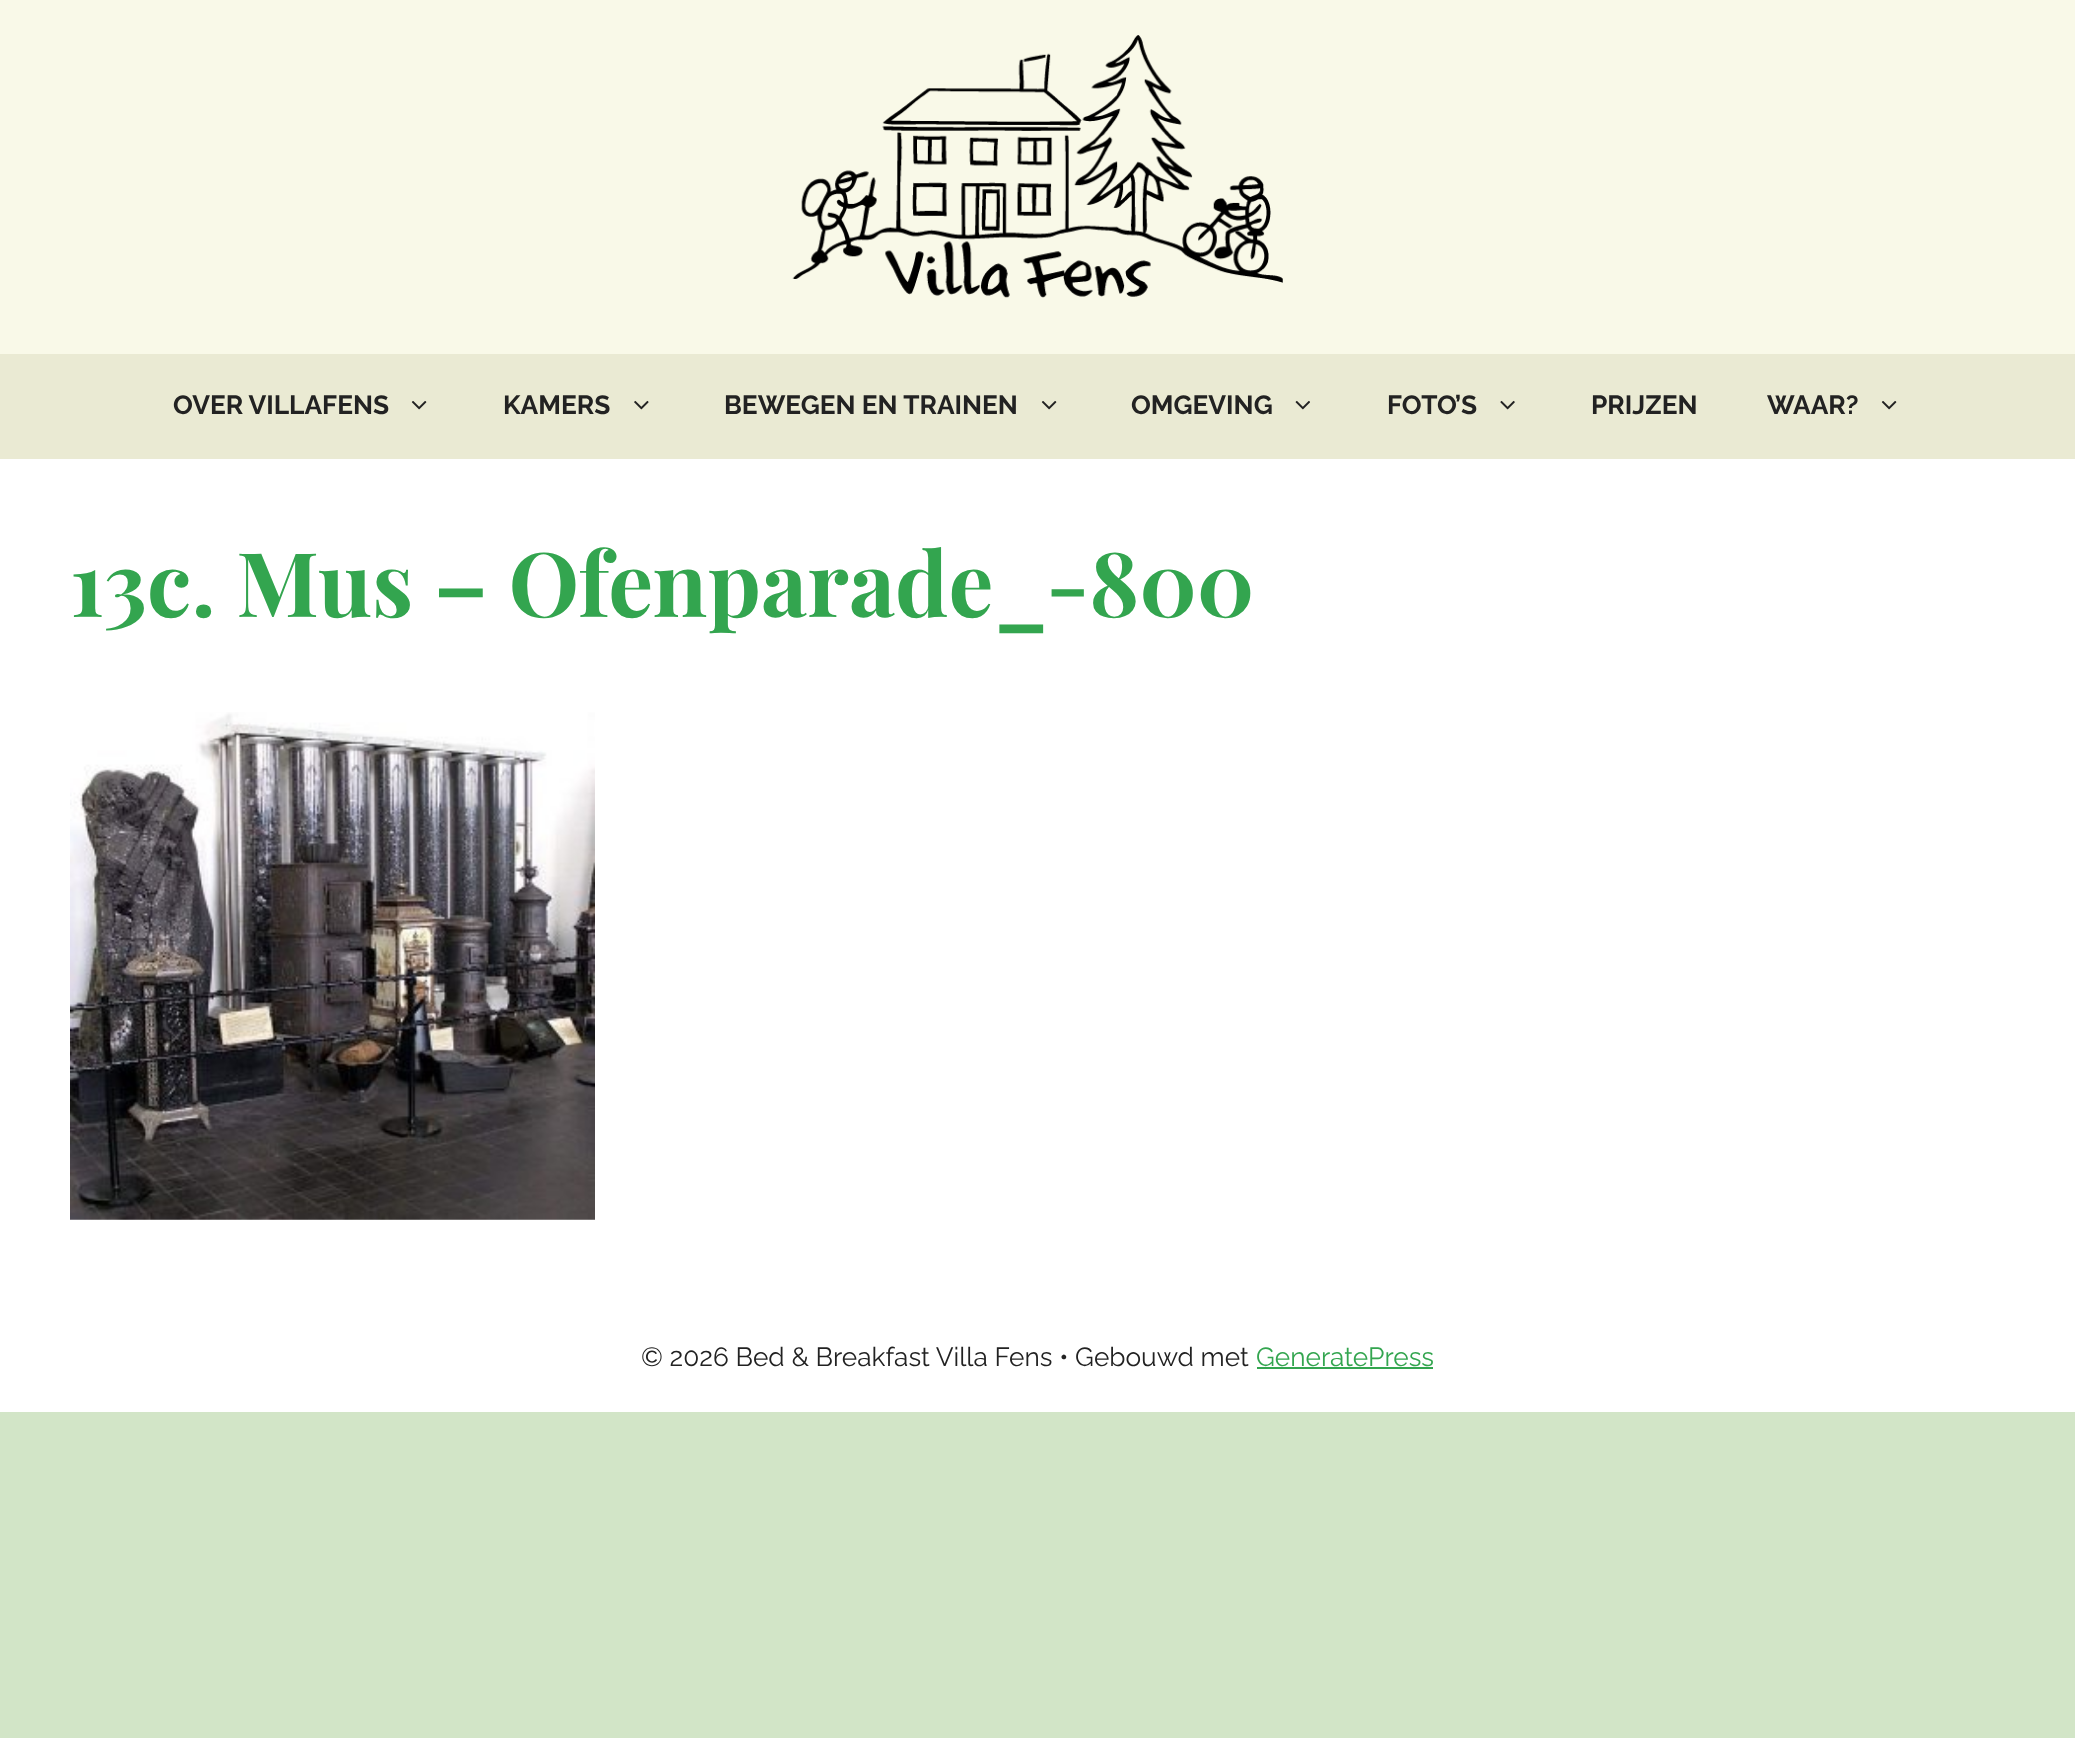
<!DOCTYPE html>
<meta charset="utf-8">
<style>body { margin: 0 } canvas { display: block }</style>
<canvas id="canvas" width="2075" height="1738"></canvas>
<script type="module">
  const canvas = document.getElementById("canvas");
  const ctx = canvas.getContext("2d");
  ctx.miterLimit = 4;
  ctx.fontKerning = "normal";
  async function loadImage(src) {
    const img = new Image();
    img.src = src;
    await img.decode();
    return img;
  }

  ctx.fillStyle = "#d2e5c7";
  ctx.fillRect(0, 0, 2075, 1738);
  ctx.fillStyle = "#f9f9e8";
  ctx.fillRect(0, 0, 2075, 354);
  ctx.drawImage(await loadImage("img1.png"), 792, 35, 491, 263);
  ctx.fillStyle = "#eaead3";
  ctx.fillRect(0, 354, 2075, 105);
  ctx.font = "bold 26.25px Raleway";
  ctx.fillStyle = "#222222";
  ctx.fillText("OVER VILLAFENS", 173, 414);
  ctx.drawImage(await loadImage("img2.png"), 411, 401, 16, 9);
  ctx.fillText("KAMERS", 503, 414);
  ctx.drawImage(await loadImage("img3.png"), 634, 400, 15, 10);
  ctx.fillText("BEWEGEN EN TRAINEN", 724, 414);
  ctx.drawImage(await loadImage("img2.png"), 1041, 401, 16, 9);
  ctx.fillText("OMGEVING", 1131, 414);
  ctx.drawImage(await loadImage("img4.png"), 1295, 400, 15, 10);
  ctx.fillText("FOTO’S", 1387, 414);
  ctx.drawImage(await loadImage("img5.png"), 1500, 400, 15, 10);
  ctx.fillText("PRIJZEN", 1591, 414);
  ctx.fillText("WAAR?", 1767, 414);
  ctx.drawImage(await loadImage("img2.png"), 1881, 401, 16, 9);
  ctx.fillStyle = "#ffffff";
  ctx.fillRect(0, 459, 2075, 953);
  ctx.font = "bold 89.25px Playfair Display";
  ctx.fillStyle = "#33a54f";
  ctx.fillText("13c. Mus – Ofenparade_-800", 70, 617);
  ctx.drawImage(await loadImage("img6.png"), 70, 712, 525, 508);
  ctx.font = "26.25px Raleway";
  ctx.fillStyle = "#222222";
  ctx.fillText("© 2026 Bed & Breakfast Villa Fens • Gebouwd met", 641, 1366);
  ctx.fillStyle = "#33a54f";
  ctx.fillText("GeneratePress", 1256, 1366);
  ctx.fillRect(1257, 1367, 176, 2);
</script>
